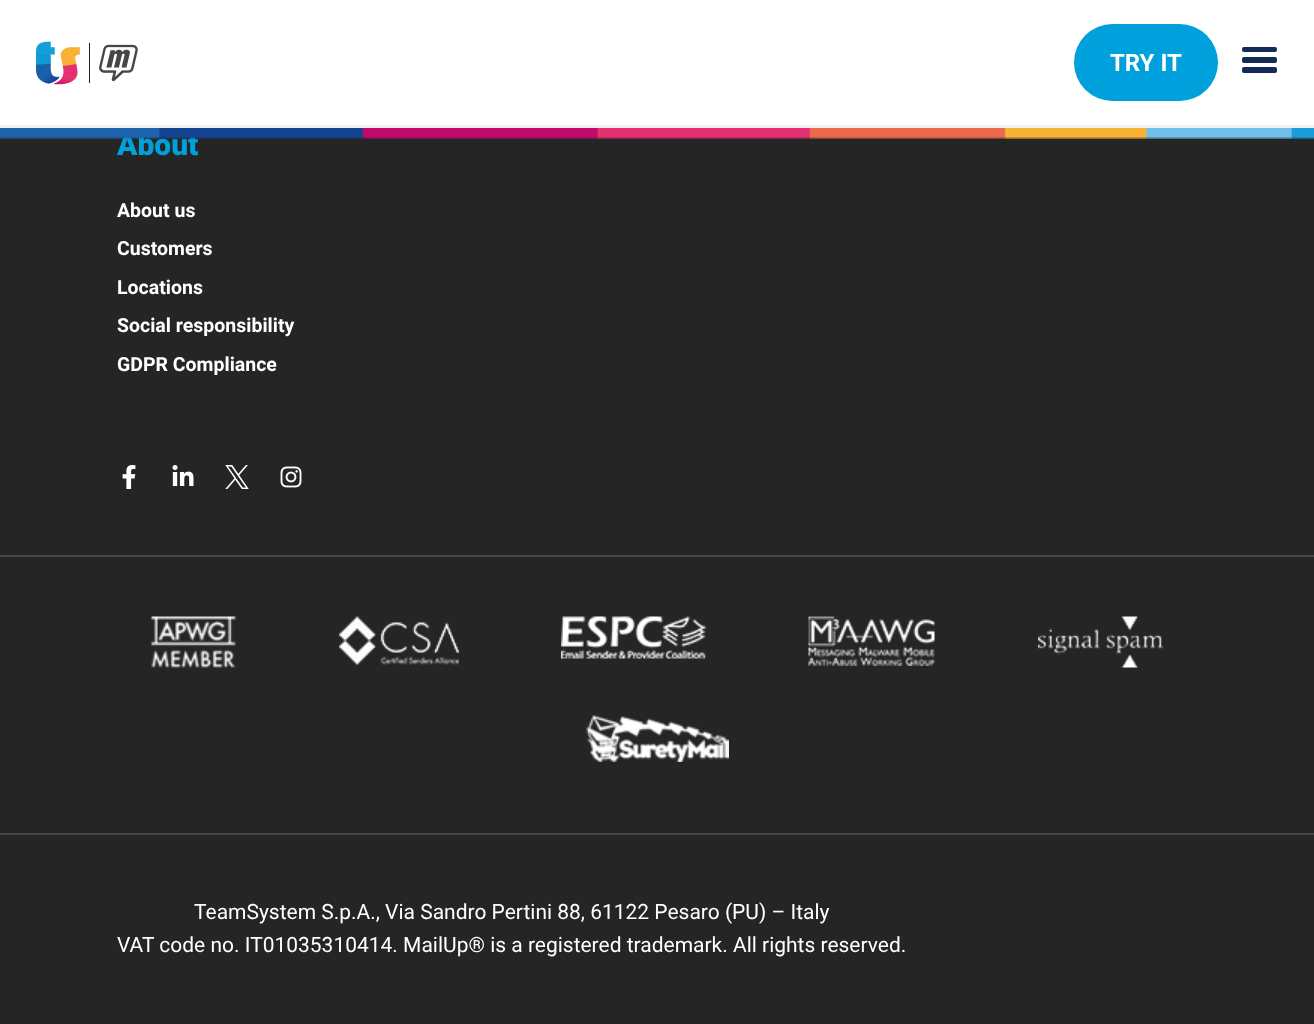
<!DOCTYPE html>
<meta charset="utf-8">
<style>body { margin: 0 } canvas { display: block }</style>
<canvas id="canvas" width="1314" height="1024"></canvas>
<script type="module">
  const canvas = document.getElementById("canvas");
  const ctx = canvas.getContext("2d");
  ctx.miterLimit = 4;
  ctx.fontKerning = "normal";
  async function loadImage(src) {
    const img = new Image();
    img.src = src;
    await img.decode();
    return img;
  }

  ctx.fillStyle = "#252525";
  ctx.fillRect(0, 0, 1314, 1024);
  ctx.fillStyle = "#ffffff";
  ctx.fillRect(0, 0, 1314, 125);
  ctx.fillStyle = "#f2f2f2";
  ctx.fillRect(0, 125, 1314, 3);
  ctx.drawImage(await loadImage("img1.png"), 36, 41, 102, 44);
  ctx.fillStyle = "#00a0dc";
  ctx.beginPath();
  ctx.roundRect(1074, 24, 144, 77, 38.5);
  ctx.fill();
  ctx.font = "bold 24px Roboto";
  ctx.fillStyle = "#ffffff";
  ctx.fillText("TRY IT", 1110, 71);
  ctx.fillStyle = "#132b56";
  ctx.beginPath();
  ctx.roundRect(1242, 47, 35, 5, 2);
  ctx.fill();
  ctx.beginPath();
  ctx.roundRect(1242, 57, 35, 6, 2);
  ctx.fill();
  ctx.beginPath();
  ctx.roundRect(1242, 67, 35, 6, 2);
  ctx.fill();
  ctx.font = "900 30px Roboto";
  ctx.fillStyle = "#00a0dc";
  ctx.fillText("About", 117, 155);
  ctx.drawImage(await loadImage("img2.png"), 0, 128, 1314, 11);
  ctx.font = "bold 19.5px Roboto";
  ctx.fillStyle = "#ffffff";
  ctx.fillText("About us", 117, 217);
  ctx.fillText("Customers", 117, 255);
  ctx.fillText("Locations", 117, 294);
  ctx.fillText("Social responsibility", 117, 332);
  ctx.fillText("GDPR Compliance", 117, 371);
  ctx.fillStyle = "#464646";
  ctx.fillRect(0, 555, 1314, 2);
  ctx.drawImage(await loadImage("img3.png"), 122, 465, 14, 24);
  ctx.drawImage(await loadImage("img4.png"), 172, 465, 22, 21);
  ctx.drawImage(await loadImage("img5.png"), 225, 465, 24, 24);
  ctx.drawImage(await loadImage("img6.png"), 280, 466, 22, 22);
  ctx.fillRect(0, 833, 1314, 2);
  ctx.drawImage(await loadImage("img7.png"), 151, 616, 85, 52);
  ctx.drawImage(await loadImage("img8.png"), 339, 616, 120, 49);
  ctx.drawImage(await loadImage("img9.png"), 561, 616, 146, 43);
  ctx.drawImage(await loadImage("img10.png"), 808, 616, 127, 50);
  ctx.drawImage(await loadImage("img11.png"), 1038, 616, 126, 52);
  ctx.drawImage(await loadImage("img12.png"), 586, 715, 143, 47);
  ctx.font = "21px Roboto";
  ctx.fillStyle = "#ffffff";
  ctx.fillText("TeamSystem S.p.A., Via Sandro Pertini 88, 61122 Pesaro (PU) – Italy", 194, 919);
  ctx.fillText("VAT code no. IT01035310414. MailUp® is a registered trademark. All rights reserved.", 117, 952);
</script>
